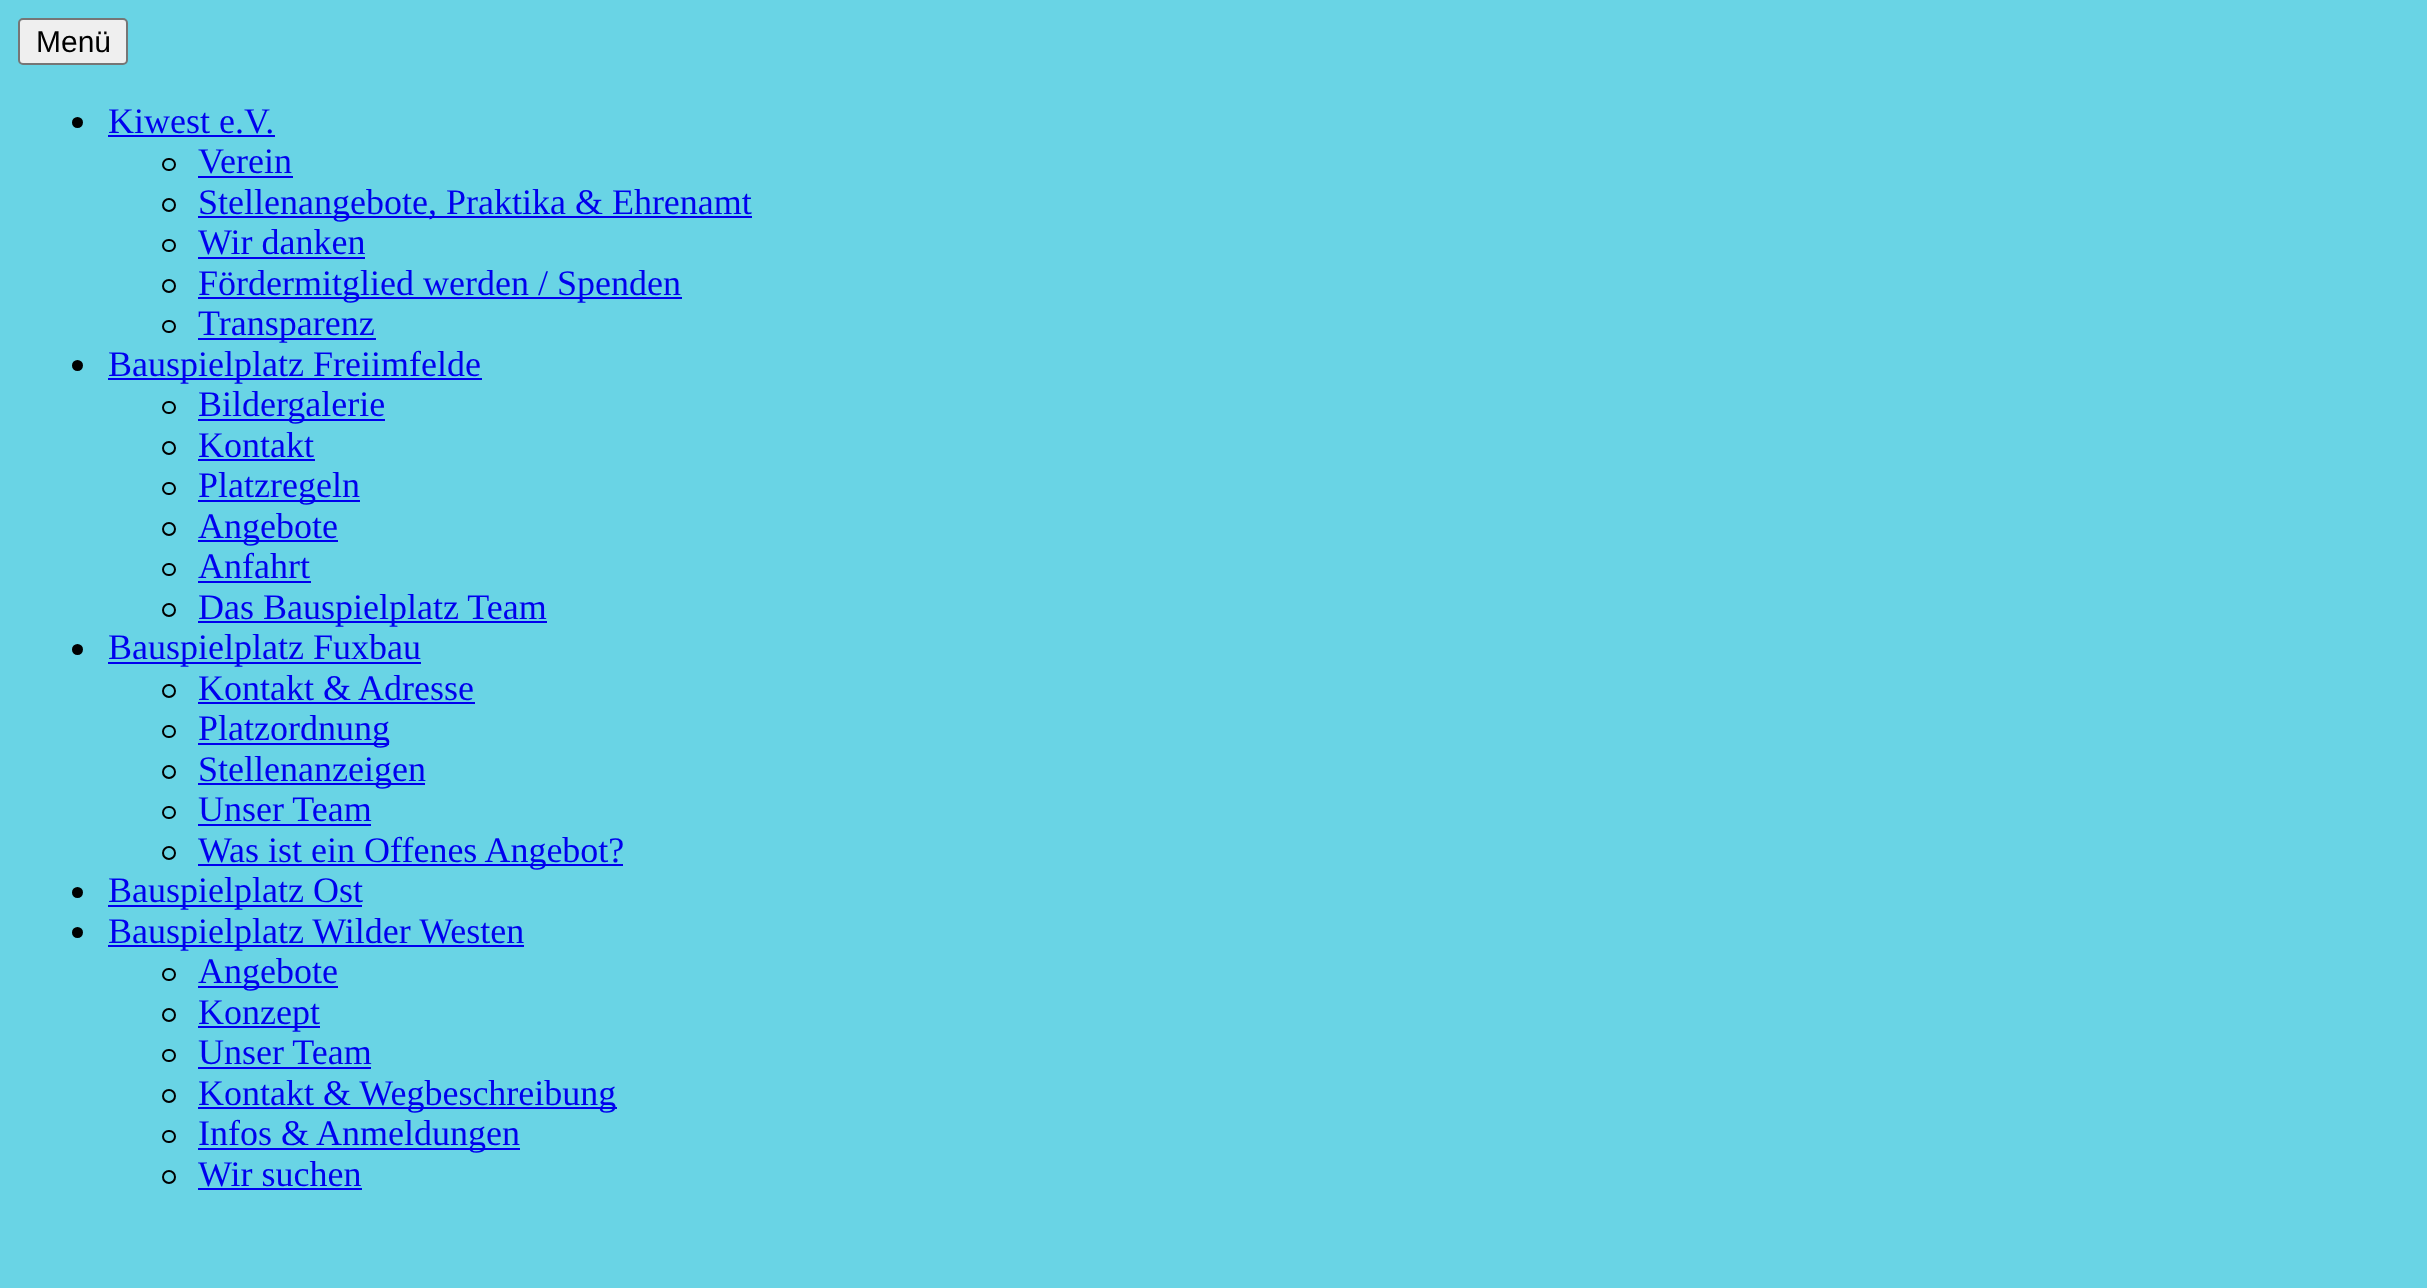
<!DOCTYPE html>
<meta charset="utf-8">
<style>body { margin: 0 } canvas { display: block }</style>
<canvas id="canvas" width="2427" height="1288"></canvas>
<script type="module">
  const canvas = document.getElementById("canvas");
  const ctx = canvas.getContext("2d");
  ctx.miterLimit = 4;
  ctx.fontKerning = "normal";

  ctx.fillStyle = "#69d4e5";
  ctx.fillRect(0, 0, 2427, 1288);
  ctx.fillStyle = "#efefef";
  ctx.beginPath();
  ctx.roundRect(19, 19, 108, 45, 4);
  ctx.fill();
  ctx.strokeStyle = "#767676";
  ctx.lineWidth = 2;
  ctx.stroke();
  ctx.font = "30px Liberation Sans";
  ctx.fillStyle = "#000000";
  ctx.fillText("Menü", 36, 52);
  ctx.beginPath();
  ctx.arc(77.5, 122.5, 5.5, 0, Math.PI * 2);
  ctx.fill();
  ctx.font = "36px Liberation Serif";
  ctx.fillStyle = "#0000ee";
  ctx.fillText("Kiwest e.V.", 108, 133);
  ctx.fillRect(108, 135, 167, 2);
  ctx.beginPath();
  ctx.roundRect(163, 159, 12, 11, 5.5);
  ctx.strokeStyle = "#000000";
  ctx.stroke();
  ctx.fillText("Verein", 198, 173);
  ctx.fillRect(198, 176, 95, 2);
  ctx.beginPath();
  ctx.arc(169, 205, 6, 0, Math.PI * 2);
  ctx.stroke();
  ctx.fillRect(198, 216, 554, 2);
  ctx.fillText("Stellenangebote, Praktika & Ehrenamt", 198, 214);
  ctx.beginPath();
  ctx.roundRect(163, 240, 12, 11, 5.5);
  ctx.stroke();
  ctx.fillText("Wir danken", 198, 254);
  ctx.fillRect(198, 257, 167, 2);
  ctx.beginPath();
  ctx.arc(169, 286, 6, 0, Math.PI * 2);
  ctx.stroke();
  ctx.fillRect(198, 297, 484, 2);
  ctx.fillText("Fördermitglied werden / Spenden", 198, 295);
  ctx.beginPath();
  ctx.roundRect(163, 321, 12, 11, 5.5);
  ctx.stroke();
  ctx.fillRect(198, 338, 178, 2);
  ctx.fillText("Transparenz", 198, 335);
  ctx.fillStyle = "#000000";
  ctx.beginPath();
  ctx.arc(77.5, 365.5, 5.5, 0, Math.PI * 2);
  ctx.fill();
  ctx.fillStyle = "#0000ee";
  ctx.fillRect(108, 378, 374, 2);
  ctx.fillText("Bauspielplatz Freiimfelde", 108, 376);
  ctx.beginPath();
  ctx.roundRect(163, 402, 12, 11, 5.5);
  ctx.stroke();
  ctx.fillRect(198, 419, 187, 2);
  ctx.fillText("Bildergalerie", 198, 416);
  ctx.beginPath();
  ctx.arc(169, 448, 6, 0, Math.PI * 2);
  ctx.stroke();
  ctx.fillText("Kontakt", 198, 457);
  ctx.fillRect(198, 459, 117, 2);
  ctx.beginPath();
  ctx.roundRect(163, 483, 12, 11, 5.5);
  ctx.stroke();
  ctx.fillRect(198, 500, 162, 2);
  ctx.fillText("Platzregeln", 198, 497);
  ctx.beginPath();
  ctx.arc(169, 529, 6, 0, Math.PI * 2);
  ctx.stroke();
  ctx.fillRect(198, 540, 140, 2);
  ctx.fillText("Angebote", 198, 538);
  ctx.beginPath();
  ctx.roundRect(163, 564, 12, 11, 5.5);
  ctx.stroke();
  ctx.fillText("Anfahrt", 198, 578);
  ctx.fillRect(198, 581, 113, 2);
  ctx.beginPath();
  ctx.arc(169, 610, 6, 0, Math.PI * 2);
  ctx.stroke();
  ctx.fillRect(198, 621, 349, 2);
  ctx.fillText("Das Bauspielplatz Team", 198, 619);
  ctx.fillStyle = "#000000";
  ctx.beginPath();
  ctx.arc(77.5, 649.5, 5.5, 0, Math.PI * 2);
  ctx.fill();
  ctx.fillStyle = "#0000ee";
  ctx.fillRect(108, 662, 313, 2);
  ctx.fillText("Bauspielplatz Fuxbau", 108, 659);
  ctx.beginPath();
  ctx.arc(169, 691, 6, 0, Math.PI * 2);
  ctx.stroke();
  ctx.fillText("Kontakt & Adresse", 198, 700);
  ctx.fillRect(198, 702, 277, 2);
  ctx.beginPath();
  ctx.roundRect(163, 726, 12, 11, 5.5);
  ctx.stroke();
  ctx.fillRect(198, 743, 191, 2);
  ctx.fillText("Platzordnung", 198, 740);
  ctx.beginPath();
  ctx.arc(169, 772, 6, 0, Math.PI * 2);
  ctx.stroke();
  ctx.fillRect(198, 783, 227, 2);
  ctx.fillText("Stellenanzeigen", 198, 781);
  ctx.beginPath();
  ctx.roundRect(163, 807, 12, 11, 5.5);
  ctx.stroke();
  ctx.fillText("Unser Team", 198, 821);
  ctx.fillRect(198, 824, 173, 2);
  ctx.beginPath();
  ctx.arc(169, 853, 6, 0, Math.PI * 2);
  ctx.stroke();
  ctx.fillRect(198, 864, 425, 2);
  ctx.fillText("Was ist ein Offenes Angebot?", 198, 862);
  ctx.fillStyle = "#000000";
  ctx.beginPath();
  ctx.arc(77.5, 892.5, 5.5, 0, Math.PI * 2);
  ctx.fill();
  ctx.fillStyle = "#0000ee";
  ctx.fillRect(108, 905, 254, 2);
  ctx.fillText("Bauspielplatz Ost", 108, 902);
  ctx.fillStyle = "#000000";
  ctx.beginPath();
  ctx.arc(77.5, 932.5, 5.5, 0, Math.PI * 2);
  ctx.fill();
  ctx.fillStyle = "#0000ee";
  ctx.fillRect(108, 945, 416, 2);
  ctx.fillText("Bauspielplatz Wilder Westen", 108, 943);
  ctx.beginPath();
  ctx.roundRect(163, 969, 12, 11, 5.5);
  ctx.stroke();
  ctx.fillRect(198, 986, 140, 2);
  ctx.fillText("Angebote", 198, 983);
  ctx.beginPath();
  ctx.arc(169, 1015, 6, 0, Math.PI * 2);
  ctx.stroke();
  ctx.fillRect(198, 1026, 122, 2);
  ctx.fillText("Konzept", 198, 1024);
  ctx.beginPath();
  ctx.roundRect(163, 1050, 12, 11, 5.5);
  ctx.stroke();
  ctx.fillText("Unser Team", 198, 1064);
  ctx.fillRect(198, 1067, 173, 2);
  ctx.beginPath();
  ctx.arc(169, 1096, 6, 0, Math.PI * 2);
  ctx.stroke();
  ctx.fillRect(198, 1107, 419, 2);
  ctx.fillText("Kontakt & Wegbeschreibung", 198, 1105);
  ctx.beginPath();
  ctx.roundRect(163, 1131, 12, 11, 5.5);
  ctx.stroke();
  ctx.fillRect(198, 1148, 322, 2);
  ctx.fillText("Infos & Anmeldungen", 198, 1145);
  ctx.beginPath();
  ctx.arc(169, 1177, 6, 0, Math.PI * 2);
  ctx.stroke();
  ctx.fillText("Wir suchen", 198, 1186);
  ctx.fillRect(198, 1188, 164, 2);
</script>
